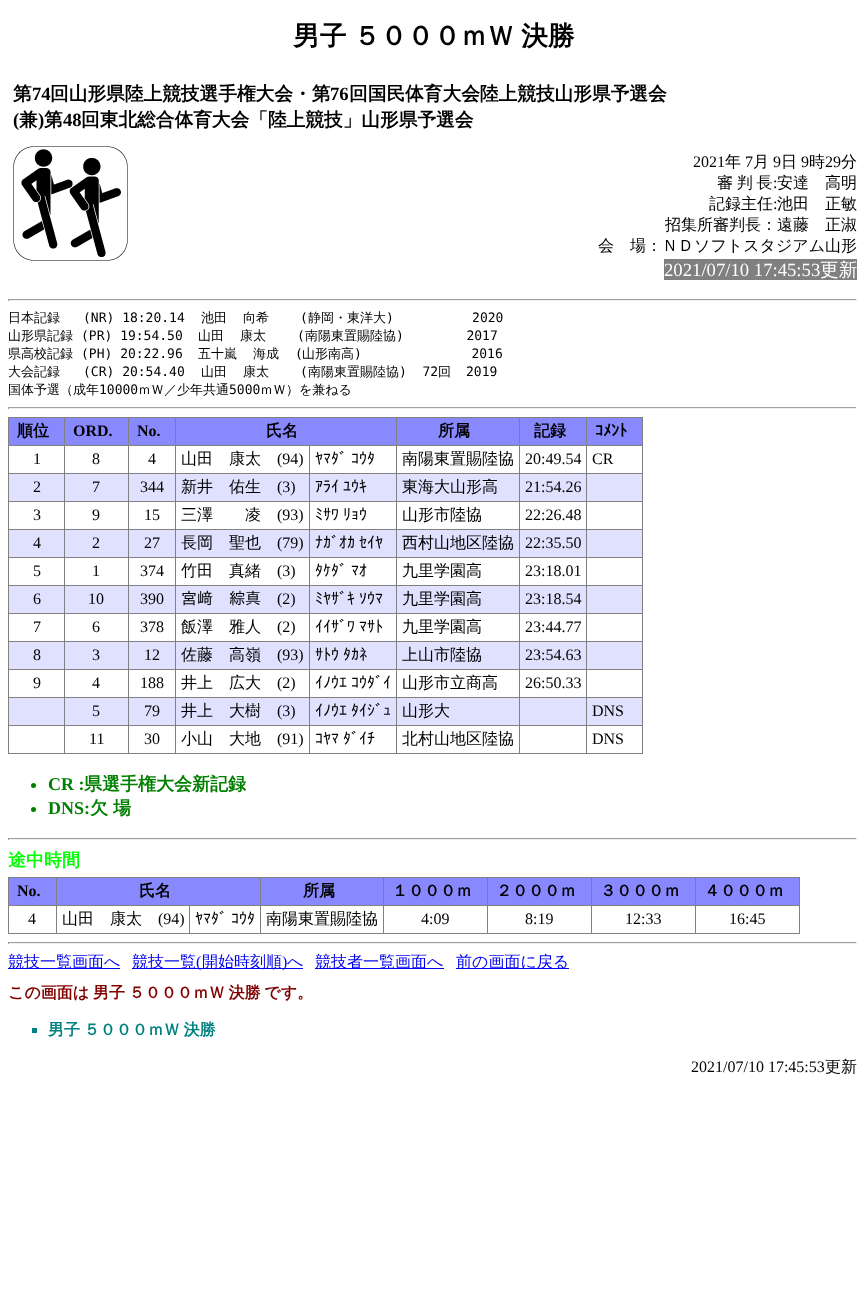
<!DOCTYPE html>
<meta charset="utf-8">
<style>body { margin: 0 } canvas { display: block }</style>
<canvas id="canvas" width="865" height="1297"></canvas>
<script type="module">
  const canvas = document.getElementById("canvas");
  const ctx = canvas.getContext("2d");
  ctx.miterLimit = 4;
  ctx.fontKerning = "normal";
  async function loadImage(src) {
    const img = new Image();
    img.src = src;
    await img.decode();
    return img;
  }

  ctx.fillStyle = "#ffffff";
  ctx.fillRect(0, 0, 865, 1297);
  ctx.wordSpacing = "-1px";
  ctx.font = "bold 26.75px WenQuanYi Zen Hei";
  ctx.fillStyle = "#000000";
  ctx.fillText("男子 ５０００ｍＷ 決勝", 293, 45);
  ctx.wordSpacing = "0px";
  ctx.font = "bold 18.7px WenQuanYi Zen Hei";
  ctx.fillText("第", 13, 100);
  ctx.font = "bold 18.7px Liberation Serif";
  ctx.fillText("74", 32, 100);
  ctx.font = "bold 18.7px WenQuanYi Zen Hei";
  ctx.fillText("回山形県陸上競技選手権大会・第", 50, 100);
  ctx.font = "bold 18.7px Liberation Serif";
  ctx.fillText("76", 330, 100);
  ctx.font = "bold 18.7px WenQuanYi Zen Hei";
  ctx.fillText("回国民体育大会陸上競技山形県予選会", 349, 100);
  ctx.font = "bold 18.7px Liberation Serif";
  ctx.fillText("(", 13, 126);
  ctx.font = "bold 18.7px WenQuanYi Zen Hei";
  ctx.fillText("兼", 19, 126);
  ctx.font = "bold 18.7px Liberation Serif";
  ctx.fillText(")", 38, 126);
  ctx.font = "bold 18.7px WenQuanYi Zen Hei";
  ctx.fillText("第", 44, 126);
  ctx.font = "bold 18.7px Liberation Serif";
  ctx.fillText("48", 63, 126);
  ctx.font = "bold 18.7px WenQuanYi Zen Hei";
  ctx.fillText("回東北総合体育大会「陸上競技」山形県予選会", 81, 126);
  ctx.drawImage(await loadImage("img1.png"), 13, 146, 115, 115);
  ctx.font = "16px Liberation Serif";
  ctx.fillText("2021", 693, 167);
  ctx.font = "500 16px WenQuanYi Zen Hei";
  ctx.fillText("年", 725, 167);
  ctx.font = "16px Liberation Serif";
  ctx.fillText("7", 745, 167);
  ctx.font = "500 16px WenQuanYi Zen Hei";
  ctx.fillText("月", 753, 167);
  ctx.font = "16px Liberation Serif";
  ctx.fillText("9", 773, 167);
  ctx.font = "500 16px WenQuanYi Zen Hei";
  ctx.fillText("日", 781, 167);
  ctx.font = "16px Liberation Serif";
  ctx.fillText("9", 801, 167);
  ctx.font = "500 16px WenQuanYi Zen Hei";
  ctx.fillText("時", 809, 167);
  ctx.font = "16px Liberation Serif";
  ctx.fillText("29", 825, 167);
  ctx.font = "500 16px WenQuanYi Zen Hei";
  ctx.fillText("分", 841, 167);
  ctx.wordSpacing = "-1px";
  ctx.fillText("審 判 長", 717, 188);
  ctx.wordSpacing = "0px";
  ctx.font = "16px Liberation Serif";
  ctx.fillText(":", 773, 188);
  ctx.font = "500 16px WenQuanYi Zen Hei";
  ctx.fillText("安達　高明", 777, 188);
  ctx.fillText("記録主任", 709, 209);
  ctx.font = "16px Liberation Serif";
  ctx.fillText(":", 773, 209);
  ctx.font = "500 16px WenQuanYi Zen Hei";
  ctx.fillText("池田　正敏", 777, 209);
  ctx.fillText("招集所審判長：遠藤　正淑", 665, 230);
  ctx.fillText("会　場：ＮＤソフトスタジアム山形", 598, 251);
  ctx.fillStyle = "#808080";
  ctx.fillRect(664, 259, 193, 21);
  ctx.font = "18.7px Liberation Serif";
  ctx.fillStyle = "#ffffff";
  ctx.fillText("2021/07/10 17:45:53", 664, 276);
  ctx.font = "500 18.7px WenQuanYi Zen Hei";
  ctx.fillText("更新", 820, 276);
  ctx.fillStyle = "#9f9f9f";
  ctx.fillRect(8, 299, 849, 1);
  ctx.fillStyle = "#eeeeee";
  ctx.fillRect(856, 299, 1, 2);
  ctx.fillRect(8, 300, 849, 1);
  ctx.fillStyle = "#9f9f9f";
  ctx.fillRect(8, 299, 1, 2);
  ctx.font = "500 13px WenQuanYi Zen Hei";
  ctx.fillStyle = "#000000";
  ctx.fillText("日本記録", 8, 322);
  ctx.font = "13px DejaVu Sans Mono";
  ctx.fillText("(NR) 18:20.14", 83, 322);
  ctx.font = "500 13px WenQuanYi Zen Hei";
  ctx.fillText("池田", 201, 322);
  ctx.fillText("向希", 243, 322);
  ctx.font = "13px DejaVu Sans Mono";
  ctx.fillText("(", 300, 322);
  ctx.font = "500 13px WenQuanYi Zen Hei";
  ctx.fillText("静岡・東洋大", 308, 322);
  ctx.font = "13px DejaVu Sans Mono";
  ctx.fillText(")          2020", 386, 322);
  ctx.font = "500 13px WenQuanYi Zen Hei";
  ctx.fillText("山形県記録", 8, 340);
  ctx.font = "13px DejaVu Sans Mono";
  ctx.fillText("(PR) 19:54.50", 81, 340);
  ctx.font = "500 13px WenQuanYi Zen Hei";
  ctx.fillText("山田", 198, 340);
  ctx.fillText("康太", 240, 340);
  ctx.font = "13px DejaVu Sans Mono";
  ctx.fillText("(", 297, 340);
  ctx.font = "500 13px WenQuanYi Zen Hei";
  ctx.fillText("南陽東置賜陸協", 305, 340);
  ctx.font = "13px DejaVu Sans Mono";
  ctx.fillText(")        2017", 396, 340);
  ctx.font = "500 13px WenQuanYi Zen Hei";
  ctx.fillText("県高校記録", 8, 358);
  ctx.font = "13px DejaVu Sans Mono";
  ctx.fillText("(PH) 20:22.96", 81, 358);
  ctx.font = "500 13px WenQuanYi Zen Hei";
  ctx.fillText("五十嵐", 198, 358);
  ctx.fillText("海成", 253, 358);
  ctx.font = "13px DejaVu Sans Mono";
  ctx.fillText("(", 295, 358);
  ctx.font = "500 13px WenQuanYi Zen Hei";
  ctx.fillText("山形南高", 302, 358);
  ctx.font = "13px DejaVu Sans Mono";
  ctx.fillText(")              2016", 354, 358);
  ctx.font = "500 13px WenQuanYi Zen Hei";
  ctx.fillText("大会記録", 8, 376);
  ctx.font = "13px DejaVu Sans Mono";
  ctx.fillText("(CR) 20:54.40", 83, 376);
  ctx.font = "500 13px WenQuanYi Zen Hei";
  ctx.fillText("山田", 201, 376);
  ctx.fillText("康太", 243, 376);
  ctx.font = "13px DejaVu Sans Mono";
  ctx.fillText("(", 300, 376);
  ctx.font = "500 13px WenQuanYi Zen Hei";
  ctx.fillText("南陽東置賜陸協", 308, 376);
  ctx.font = "13px DejaVu Sans Mono";
  ctx.fillText(")  72", 399, 376);
  ctx.font = "500 13px WenQuanYi Zen Hei";
  ctx.fillText("回", 438, 376);
  ctx.font = "13px DejaVu Sans Mono";
  ctx.fillText("2019", 466, 376);
  ctx.font = "500 13px WenQuanYi Zen Hei";
  ctx.fillText("国体予選（成年", 8, 394);
  ctx.font = "13px DejaVu Sans Mono";
  ctx.fillText("10000", 99, 394);
  ctx.font = "500 13px WenQuanYi Zen Hei";
  ctx.fillText("ｍＷ／少年共通", 138, 394);
  ctx.font = "13px DejaVu Sans Mono";
  ctx.fillText("5000", 229, 394);
  ctx.font = "500 13px WenQuanYi Zen Hei";
  ctx.fillText("ｍＷ）を兼ねる", 260, 394);
  ctx.fillStyle = "#9f9f9f";
  ctx.fillRect(8, 407, 849, 1);
  ctx.fillStyle = "#eeeeee";
  ctx.fillRect(856, 407, 1, 2);
  ctx.fillRect(8, 408, 849, 1);
  ctx.fillStyle = "#9f9f9f";
  ctx.fillRect(8, 407, 1, 2);
  ctx.fillStyle = "#808080";
  ctx.fillRect(8, 417, 635, 1);
  ctx.fillRect(8, 417, 1, 337);
  ctx.fillStyle = "#8888ff";
  ctx.fillRect(9, 418, 55, 27);
  ctx.fillStyle = "#e0e0ff";
  ctx.fillRect(9, 474, 633, 27);
  ctx.fillRect(9, 530, 633, 27);
  ctx.fillRect(9, 586, 633, 27);
  ctx.fillRect(9, 642, 633, 27);
  ctx.fillRect(9, 698, 633, 27);
  ctx.fillStyle = "#808080";
  ctx.fillRect(642, 417, 1, 337);
  ctx.fillRect(586, 753, 57, 1);
  ctx.fillRect(586, 725, 1, 29);
  ctx.fillRect(586, 725, 57, 1);
  ctx.fillRect(586, 697, 1, 29);
  ctx.fillRect(586, 697, 57, 1);
  ctx.fillRect(586, 669, 1, 29);
  ctx.fillRect(586, 669, 57, 1);
  ctx.fillRect(586, 641, 1, 29);
  ctx.fillRect(586, 641, 57, 1);
  ctx.fillRect(586, 613, 1, 29);
  ctx.fillRect(586, 613, 57, 1);
  ctx.fillRect(586, 585, 1, 29);
  ctx.fillRect(586, 585, 57, 1);
  ctx.fillRect(586, 557, 1, 29);
  ctx.fillRect(586, 557, 57, 1);
  ctx.fillRect(586, 529, 1, 29);
  ctx.fillRect(586, 529, 57, 1);
  ctx.fillRect(586, 501, 1, 29);
  ctx.fillRect(586, 501, 57, 1);
  ctx.fillRect(586, 473, 1, 29);
  ctx.fillRect(586, 473, 57, 1);
  ctx.fillRect(586, 445, 1, 29);
  ctx.fillRect(586, 445, 57, 1);
  ctx.fillRect(586, 417, 1, 29);
  ctx.fillRect(519, 753, 68, 1);
  ctx.fillRect(519, 725, 1, 29);
  ctx.fillRect(519, 725, 68, 1);
  ctx.fillRect(519, 697, 1, 29);
  ctx.fillRect(519, 697, 68, 1);
  ctx.fillRect(519, 669, 1, 29);
  ctx.fillRect(519, 669, 68, 1);
  ctx.fillRect(519, 641, 1, 29);
  ctx.fillRect(519, 641, 68, 1);
  ctx.fillRect(519, 613, 1, 29);
  ctx.fillRect(519, 613, 68, 1);
  ctx.fillRect(519, 585, 1, 29);
  ctx.fillRect(519, 585, 68, 1);
  ctx.fillRect(519, 557, 1, 29);
  ctx.fillRect(519, 557, 68, 1);
  ctx.fillRect(519, 529, 1, 29);
  ctx.fillRect(519, 529, 68, 1);
  ctx.fillRect(519, 501, 1, 29);
  ctx.fillRect(519, 501, 68, 1);
  ctx.fillRect(519, 473, 1, 29);
  ctx.fillRect(519, 473, 68, 1);
  ctx.fillRect(519, 445, 1, 29);
  ctx.fillRect(519, 445, 68, 1);
  ctx.fillRect(519, 417, 1, 29);
  ctx.fillRect(396, 753, 124, 1);
  ctx.fillRect(396, 725, 1, 29);
  ctx.fillRect(396, 725, 124, 1);
  ctx.fillRect(396, 697, 1, 29);
  ctx.fillRect(396, 697, 124, 1);
  ctx.fillRect(396, 669, 1, 29);
  ctx.fillRect(396, 669, 124, 1);
  ctx.fillRect(396, 641, 1, 29);
  ctx.fillRect(396, 641, 124, 1);
  ctx.fillRect(396, 613, 1, 29);
  ctx.fillRect(396, 613, 124, 1);
  ctx.fillRect(396, 585, 1, 29);
  ctx.fillRect(396, 585, 124, 1);
  ctx.fillRect(396, 557, 1, 29);
  ctx.fillRect(396, 557, 124, 1);
  ctx.fillRect(396, 529, 1, 29);
  ctx.fillRect(396, 529, 124, 1);
  ctx.fillRect(396, 501, 1, 29);
  ctx.fillRect(396, 501, 124, 1);
  ctx.fillRect(396, 473, 1, 29);
  ctx.fillRect(396, 473, 124, 1);
  ctx.fillRect(396, 445, 1, 29);
  ctx.fillRect(396, 445, 124, 1);
  ctx.fillRect(396, 417, 1, 29);
  ctx.fillRect(309, 753, 88, 1);
  ctx.fillRect(309, 725, 1, 29);
  ctx.fillRect(309, 725, 88, 1);
  ctx.fillRect(309, 697, 1, 29);
  ctx.fillRect(309, 697, 88, 1);
  ctx.fillRect(309, 669, 1, 29);
  ctx.fillRect(309, 669, 88, 1);
  ctx.fillRect(309, 641, 1, 29);
  ctx.fillRect(309, 641, 88, 1);
  ctx.fillRect(309, 613, 1, 29);
  ctx.fillRect(309, 613, 88, 1);
  ctx.fillRect(309, 585, 1, 29);
  ctx.fillRect(309, 585, 88, 1);
  ctx.fillRect(309, 557, 1, 29);
  ctx.fillRect(309, 557, 88, 1);
  ctx.fillRect(309, 529, 1, 29);
  ctx.fillRect(309, 529, 88, 1);
  ctx.fillRect(309, 501, 1, 29);
  ctx.fillRect(309, 501, 88, 1);
  ctx.fillRect(309, 473, 1, 29);
  ctx.fillRect(309, 473, 88, 1);
  ctx.fillRect(309, 445, 1, 29);
  ctx.fillRect(175, 753, 135, 1);
  ctx.fillRect(175, 725, 1, 29);
  ctx.fillRect(175, 725, 135, 1);
  ctx.fillRect(175, 697, 1, 29);
  ctx.fillRect(175, 697, 135, 1);
  ctx.fillRect(175, 669, 1, 29);
  ctx.fillRect(175, 669, 135, 1);
  ctx.fillRect(175, 641, 1, 29);
  ctx.fillRect(175, 641, 135, 1);
  ctx.fillRect(175, 613, 1, 29);
  ctx.fillRect(175, 613, 135, 1);
  ctx.fillRect(175, 585, 1, 29);
  ctx.fillRect(175, 585, 135, 1);
  ctx.fillRect(175, 557, 1, 29);
  ctx.fillRect(175, 557, 135, 1);
  ctx.fillRect(175, 529, 1, 29);
  ctx.fillRect(175, 529, 135, 1);
  ctx.fillRect(175, 501, 1, 29);
  ctx.fillRect(175, 501, 135, 1);
  ctx.fillRect(175, 473, 1, 29);
  ctx.fillRect(175, 473, 135, 1);
  ctx.fillRect(175, 445, 1, 29);
  ctx.fillRect(175, 445, 222, 1);
  ctx.fillRect(175, 417, 1, 29);
  ctx.fillRect(128, 753, 48, 1);
  ctx.fillRect(128, 725, 1, 29);
  ctx.fillRect(128, 725, 48, 1);
  ctx.fillRect(128, 697, 1, 29);
  ctx.fillRect(128, 697, 48, 1);
  ctx.fillRect(128, 669, 1, 29);
  ctx.fillRect(128, 669, 48, 1);
  ctx.fillRect(128, 641, 1, 29);
  ctx.fillRect(128, 641, 48, 1);
  ctx.fillRect(128, 613, 1, 29);
  ctx.fillRect(128, 613, 48, 1);
  ctx.fillRect(128, 585, 1, 29);
  ctx.fillRect(128, 585, 48, 1);
  ctx.fillRect(128, 557, 1, 29);
  ctx.fillRect(128, 557, 48, 1);
  ctx.fillRect(128, 529, 1, 29);
  ctx.fillRect(128, 529, 48, 1);
  ctx.fillRect(128, 501, 1, 29);
  ctx.fillRect(128, 501, 48, 1);
  ctx.fillRect(128, 473, 1, 29);
  ctx.fillRect(128, 473, 48, 1);
  ctx.fillRect(128, 445, 1, 29);
  ctx.fillRect(128, 445, 48, 1);
  ctx.fillRect(128, 417, 1, 29);
  ctx.fillRect(64, 753, 65, 1);
  ctx.fillRect(64, 725, 1, 29);
  ctx.fillRect(64, 725, 65, 1);
  ctx.fillRect(64, 697, 1, 29);
  ctx.fillRect(64, 697, 65, 1);
  ctx.fillRect(64, 669, 1, 29);
  ctx.fillRect(64, 669, 65, 1);
  ctx.fillRect(64, 641, 1, 29);
  ctx.fillRect(64, 641, 65, 1);
  ctx.fillRect(64, 613, 1, 29);
  ctx.fillRect(64, 613, 65, 1);
  ctx.fillRect(64, 585, 1, 29);
  ctx.fillRect(64, 585, 65, 1);
  ctx.fillRect(64, 557, 1, 29);
  ctx.fillRect(64, 557, 65, 1);
  ctx.fillRect(64, 529, 1, 29);
  ctx.fillRect(64, 529, 65, 1);
  ctx.fillRect(64, 501, 1, 29);
  ctx.fillRect(64, 501, 65, 1);
  ctx.fillRect(64, 473, 1, 29);
  ctx.fillRect(64, 473, 65, 1);
  ctx.fillRect(64, 445, 1, 29);
  ctx.fillRect(64, 445, 65, 1);
  ctx.fillRect(64, 417, 1, 29);
  ctx.fillRect(8, 445, 57, 1);
  ctx.font = "bold 16px WenQuanYi Zen Hei";
  ctx.fillStyle = "#000000";
  ctx.fillText("順位", 17, 436);
  ctx.fillStyle = "#8888ff";
  ctx.fillRect(65, 418, 63, 27);
  ctx.font = "bold 16px Liberation Serif";
  ctx.fillStyle = "#000000";
  ctx.fillText("ORD.", 73, 436);
  ctx.fillStyle = "#8888ff";
  ctx.fillRect(129, 418, 46, 27);
  ctx.fillStyle = "#000000";
  ctx.fillText("No.", 137, 436);
  ctx.fillStyle = "#8888ff";
  ctx.fillRect(176, 418, 220, 27);
  ctx.font = "bold 16px WenQuanYi Zen Hei";
  ctx.fillStyle = "#000000";
  ctx.fillText("氏名", 266, 436);
  ctx.fillStyle = "#8888ff";
  ctx.fillRect(397, 418, 122, 27);
  ctx.fillStyle = "#000000";
  ctx.fillText("所属", 438, 436);
  ctx.fillStyle = "#8888ff";
  ctx.fillRect(520, 418, 66, 27);
  ctx.fillStyle = "#000000";
  ctx.fillText("記録", 534, 436);
  ctx.fillStyle = "#8888ff";
  ctx.fillRect(587, 418, 55, 27);
  ctx.font = "bold 16px IPAGothic";
  ctx.fillStyle = "#000000";
  ctx.fillText("ｺﾒﾝﾄ", 595, 436);
  ctx.fillStyle = "#808080";
  ctx.fillRect(8, 473, 57, 1);
  ctx.font = "16px Liberation Serif";
  ctx.fillStyle = "#000000";
  ctx.fillText("1", 33, 464);
  ctx.fillText("8", 92, 464);
  ctx.fillText("4", 148, 464);
  ctx.font = "500 16px WenQuanYi Zen Hei";
  ctx.fillText("山田　康太", 181, 464);
  ctx.font = "16px Liberation Serif";
  ctx.fillText("(94)", 277, 464);
  ctx.wordSpacing = "-4px";
  ctx.font = "16px IPAGothic";
  ctx.fillText("ﾔﾏﾀﾞ ｺｳﾀ", 315, 464);
  ctx.wordSpacing = "0px";
  ctx.font = "500 16px WenQuanYi Zen Hei";
  ctx.fillText("南陽東置賜陸協", 402, 464);
  ctx.font = "16px Liberation Serif";
  ctx.fillText("20:49.54", 525, 464);
  ctx.fillText("CR", 592, 464);
  ctx.fillStyle = "#808080";
  ctx.fillRect(8, 501, 57, 1);
  ctx.fillStyle = "#000000";
  ctx.fillText("2", 33, 492);
  ctx.fillText("7", 92, 492);
  ctx.fillText("344", 140, 492);
  ctx.font = "500 16px WenQuanYi Zen Hei";
  ctx.fillText("新井　佑生", 181, 492);
  ctx.font = "16px Liberation Serif";
  ctx.fillText("(3)", 277, 492);
  ctx.wordSpacing = "-4px";
  ctx.font = "16px IPAGothic";
  ctx.fillText("ｱﾗｲ ﾕｳｷ", 315, 492);
  ctx.wordSpacing = "0px";
  ctx.font = "500 16px WenQuanYi Zen Hei";
  ctx.fillText("東海大山形高", 402, 492);
  ctx.font = "16px Liberation Serif";
  ctx.fillText("21:54.26", 525, 492);
  ctx.fillStyle = "#808080";
  ctx.fillRect(8, 529, 57, 1);
  ctx.fillStyle = "#000000";
  ctx.fillText("3", 33, 520);
  ctx.fillText("9", 92, 520);
  ctx.fillText("15", 144, 520);
  ctx.font = "500 16px WenQuanYi Zen Hei";
  ctx.fillText("三澤　　凌", 181, 520);
  ctx.font = "16px Liberation Serif";
  ctx.fillText("(93)", 277, 520);
  ctx.wordSpacing = "-4px";
  ctx.font = "16px IPAGothic";
  ctx.fillText("ﾐｻﾜ ﾘｮｳ", 315, 520);
  ctx.wordSpacing = "0px";
  ctx.font = "500 16px WenQuanYi Zen Hei";
  ctx.fillText("山形市陸協", 402, 520);
  ctx.font = "16px Liberation Serif";
  ctx.fillText("22:26.48", 525, 520);
  ctx.fillStyle = "#808080";
  ctx.fillRect(8, 557, 57, 1);
  ctx.fillStyle = "#000000";
  ctx.fillText("4", 33, 548);
  ctx.fillText("2", 92, 548);
  ctx.fillText("27", 144, 548);
  ctx.font = "500 16px WenQuanYi Zen Hei";
  ctx.fillText("長岡　聖也", 181, 548);
  ctx.font = "16px Liberation Serif";
  ctx.fillText("(79)", 277, 548);
  ctx.wordSpacing = "-4px";
  ctx.font = "16px IPAGothic";
  ctx.fillText("ﾅｶﾞｵｶ ｾｲﾔ", 315, 548);
  ctx.wordSpacing = "0px";
  ctx.font = "500 16px WenQuanYi Zen Hei";
  ctx.fillText("西村山地区陸協", 402, 548);
  ctx.font = "16px Liberation Serif";
  ctx.fillText("22:35.50", 525, 548);
  ctx.fillStyle = "#808080";
  ctx.fillRect(8, 585, 57, 1);
  ctx.fillStyle = "#000000";
  ctx.fillText("5", 33, 576);
  ctx.fillText("1", 92, 576);
  ctx.fillText("374", 140, 576);
  ctx.font = "500 16px WenQuanYi Zen Hei";
  ctx.fillText("竹田　真緒", 181, 576);
  ctx.font = "16px Liberation Serif";
  ctx.fillText("(3)", 277, 576);
  ctx.wordSpacing = "-4px";
  ctx.font = "16px IPAGothic";
  ctx.fillText("ﾀｹﾀﾞ ﾏｵ", 315, 576);
  ctx.wordSpacing = "0px";
  ctx.font = "500 16px WenQuanYi Zen Hei";
  ctx.fillText("九里学園高", 402, 576);
  ctx.font = "16px Liberation Serif";
  ctx.fillText("23:18.01", 525, 576);
  ctx.fillStyle = "#808080";
  ctx.fillRect(8, 613, 57, 1);
  ctx.fillStyle = "#000000";
  ctx.fillText("6", 33, 604);
  ctx.fillText("10", 88, 604);
  ctx.fillText("390", 140, 604);
  ctx.font = "16px IPAGothic";
  ctx.fillText("宮﨑　綜真", 181, 604);
  ctx.font = "16px Liberation Serif";
  ctx.fillText("(2)", 277, 604);
  ctx.wordSpacing = "-4px";
  ctx.font = "16px IPAGothic";
  ctx.fillText("ﾐﾔｻﾞｷ ｿｳﾏ", 315, 604);
  ctx.wordSpacing = "0px";
  ctx.font = "500 16px WenQuanYi Zen Hei";
  ctx.fillText("九里学園高", 402, 604);
  ctx.font = "16px Liberation Serif";
  ctx.fillText("23:18.54", 525, 604);
  ctx.fillStyle = "#808080";
  ctx.fillRect(8, 641, 57, 1);
  ctx.fillStyle = "#000000";
  ctx.fillText("7", 33, 632);
  ctx.fillText("6", 92, 632);
  ctx.fillText("378", 140, 632);
  ctx.font = "500 16px WenQuanYi Zen Hei";
  ctx.fillText("飯澤　雅人", 181, 632);
  ctx.font = "16px Liberation Serif";
  ctx.fillText("(2)", 277, 632);
  ctx.wordSpacing = "-4px";
  ctx.font = "16px IPAGothic";
  ctx.fillText("ｲｲｻﾞﾜ ﾏｻﾄ", 315, 632);
  ctx.wordSpacing = "0px";
  ctx.font = "500 16px WenQuanYi Zen Hei";
  ctx.fillText("九里学園高", 402, 632);
  ctx.font = "16px Liberation Serif";
  ctx.fillText("23:44.77", 525, 632);
  ctx.fillStyle = "#808080";
  ctx.fillRect(8, 669, 57, 1);
  ctx.fillStyle = "#000000";
  ctx.fillText("8", 33, 660);
  ctx.fillText("3", 92, 660);
  ctx.fillText("12", 144, 660);
  ctx.font = "500 16px WenQuanYi Zen Hei";
  ctx.fillText("佐藤　高嶺", 181, 660);
  ctx.font = "16px Liberation Serif";
  ctx.fillText("(93)", 277, 660);
  ctx.wordSpacing = "-4px";
  ctx.font = "16px IPAGothic";
  ctx.fillText("ｻﾄｳ ﾀｶﾈ", 315, 660);
  ctx.wordSpacing = "0px";
  ctx.font = "500 16px WenQuanYi Zen Hei";
  ctx.fillText("上山市陸協", 402, 660);
  ctx.font = "16px Liberation Serif";
  ctx.fillText("23:54.63", 525, 660);
  ctx.fillStyle = "#808080";
  ctx.fillRect(8, 697, 57, 1);
  ctx.fillStyle = "#000000";
  ctx.fillText("9", 33, 688);
  ctx.fillText("4", 92, 688);
  ctx.fillText("188", 140, 688);
  ctx.font = "500 16px WenQuanYi Zen Hei";
  ctx.fillText("井上　広大", 181, 688);
  ctx.font = "16px Liberation Serif";
  ctx.fillText("(2)", 277, 688);
  ctx.wordSpacing = "-4px";
  ctx.font = "16px IPAGothic";
  ctx.fillText("ｲﾉｳｴ ｺｳﾀﾞｲ", 315, 688);
  ctx.wordSpacing = "0px";
  ctx.font = "500 16px WenQuanYi Zen Hei";
  ctx.fillText("山形市立商高", 402, 688);
  ctx.font = "16px Liberation Serif";
  ctx.fillText("26:50.33", 525, 688);
  ctx.fillStyle = "#808080";
  ctx.fillRect(8, 725, 57, 1);
  ctx.fillStyle = "#000000";
  ctx.fillText("5", 92, 716);
  ctx.fillText("79", 144, 716);
  ctx.font = "500 16px WenQuanYi Zen Hei";
  ctx.fillText("井上　大樹", 181, 716);
  ctx.font = "16px Liberation Serif";
  ctx.fillText("(3)", 277, 716);
  ctx.wordSpacing = "-4px";
  ctx.font = "16px IPAGothic";
  ctx.fillText("ｲﾉｳｴ ﾀｲｼﾞｭ", 315, 716);
  ctx.wordSpacing = "0px";
  ctx.font = "500 16px WenQuanYi Zen Hei";
  ctx.fillText("山形大", 402, 716);
  ctx.font = "16px Liberation Serif";
  ctx.fillText("DNS", 592, 716);
  ctx.fillStyle = "#808080";
  ctx.fillRect(8, 753, 57, 1);
  ctx.fillStyle = "#000000";
  ctx.fillText("11", 89, 744);
  ctx.fillText("30", 144, 744);
  ctx.font = "500 16px WenQuanYi Zen Hei";
  ctx.fillText("小山　大地", 181, 744);
  ctx.font = "16px Liberation Serif";
  ctx.fillText("(91)", 277, 744);
  ctx.wordSpacing = "-4px";
  ctx.font = "16px IPAGothic";
  ctx.fillText("ｺﾔﾏ ﾀﾞｲﾁ", 315, 744);
  ctx.wordSpacing = "0px";
  ctx.font = "500 16px WenQuanYi Zen Hei";
  ctx.fillText("北村山地区陸協", 402, 744);
  ctx.font = "16px Liberation Serif";
  ctx.fillText("DNS", 592, 744);
  ctx.fillStyle = "#008000";
  ctx.beginPath();
  ctx.arc(33.5, 785.5, 2.5, 0, Math.PI * 2);
  ctx.fill();
  ctx.font = "bold 18px Liberation Serif";
  ctx.fillText("CR :", 48, 790);
  ctx.font = "bold 18px WenQuanYi Zen Hei";
  ctx.fillText("県選手権大会新記録", 84, 790);
  ctx.beginPath();
  ctx.arc(33.5, 809.5, 2.5, 0, Math.PI * 2);
  ctx.fill();
  ctx.font = "bold 18px Liberation Serif";
  ctx.fillText("DNS:", 48, 814);
  ctx.font = "bold 18px WenQuanYi Zen Hei";
  ctx.fillText("欠", 90, 814);
  ctx.fillText("場", 113, 814);
  ctx.fillStyle = "#9f9f9f";
  ctx.fillRect(8, 838, 849, 1);
  ctx.fillStyle = "#eeeeee";
  ctx.fillRect(856, 838, 1, 2);
  ctx.fillRect(8, 839, 849, 1);
  ctx.fillStyle = "#9f9f9f";
  ctx.fillRect(8, 838, 1, 2);
  ctx.fillStyle = "#00ff00";
  ctx.fillText("途中時間", 8, 866);
  ctx.fillStyle = "#808080";
  ctx.fillRect(8, 877, 792, 1);
  ctx.fillRect(8, 877, 1, 57);
  ctx.fillStyle = "#8888ff";
  ctx.fillRect(9, 878, 47, 27);
  ctx.fillStyle = "#808080";
  ctx.fillRect(799, 877, 1, 57);
  ctx.fillRect(695, 933, 105, 1);
  ctx.fillRect(695, 905, 1, 29);
  ctx.fillRect(695, 905, 105, 1);
  ctx.fillRect(695, 877, 1, 29);
  ctx.fillRect(591, 933, 105, 1);
  ctx.fillRect(591, 905, 1, 29);
  ctx.fillRect(591, 905, 105, 1);
  ctx.fillRect(591, 877, 1, 29);
  ctx.fillRect(487, 933, 105, 1);
  ctx.fillRect(487, 905, 1, 29);
  ctx.fillRect(487, 905, 105, 1);
  ctx.fillRect(487, 877, 1, 29);
  ctx.fillRect(383, 933, 105, 1);
  ctx.fillRect(383, 905, 1, 29);
  ctx.fillRect(383, 905, 105, 1);
  ctx.fillRect(383, 877, 1, 29);
  ctx.fillRect(260, 933, 124, 1);
  ctx.fillRect(260, 905, 1, 29);
  ctx.fillRect(260, 905, 124, 1);
  ctx.fillRect(260, 877, 1, 29);
  ctx.fillRect(189, 933, 72, 1);
  ctx.fillRect(189, 905, 1, 29);
  ctx.fillRect(56, 933, 134, 1);
  ctx.fillRect(56, 905, 1, 29);
  ctx.fillRect(56, 905, 205, 1);
  ctx.fillRect(56, 877, 1, 29);
  ctx.fillRect(8, 905, 49, 1);
  ctx.font = "bold 16px Liberation Serif";
  ctx.fillStyle = "#000000";
  ctx.fillText("No.", 17, 896);
  ctx.fillStyle = "#8888ff";
  ctx.fillRect(57, 878, 203, 27);
  ctx.font = "bold 16px WenQuanYi Zen Hei";
  ctx.fillStyle = "#000000";
  ctx.fillText("氏名", 139, 896);
  ctx.fillStyle = "#8888ff";
  ctx.fillRect(261, 878, 122, 27);
  ctx.fillStyle = "#000000";
  ctx.fillText("所属", 303, 896);
  ctx.fillStyle = "#8888ff";
  ctx.fillRect(384, 878, 103, 27);
  ctx.fillStyle = "#000000";
  ctx.fillText("１０００ｍ", 392, 896);
  ctx.fillStyle = "#8888ff";
  ctx.fillRect(488, 878, 103, 27);
  ctx.fillStyle = "#000000";
  ctx.fillText("２０００ｍ", 496, 896);
  ctx.fillStyle = "#8888ff";
  ctx.fillRect(592, 878, 103, 27);
  ctx.fillStyle = "#000000";
  ctx.fillText("３０００ｍ", 600, 896);
  ctx.fillStyle = "#8888ff";
  ctx.fillRect(696, 878, 103, 27);
  ctx.fillStyle = "#000000";
  ctx.fillText("４０００ｍ", 704, 896);
  ctx.fillStyle = "#808080";
  ctx.fillRect(8, 933, 49, 1);
  ctx.font = "16px Liberation Serif";
  ctx.fillStyle = "#000000";
  ctx.fillText("4", 28, 924);
  ctx.font = "500 16px WenQuanYi Zen Hei";
  ctx.fillText("山田　康太", 62, 924);
  ctx.font = "16px Liberation Serif";
  ctx.fillText("(94)", 158, 924);
  ctx.wordSpacing = "-4px";
  ctx.font = "16px IPAGothic";
  ctx.fillText("ﾔﾏﾀﾞ ｺｳﾀ", 195, 924);
  ctx.wordSpacing = "0px";
  ctx.font = "500 16px WenQuanYi Zen Hei";
  ctx.fillText("南陽東置賜陸協", 266, 924);
  ctx.font = "16px Liberation Serif";
  ctx.fillText("4:09", 421, 924);
  ctx.fillText("8:19", 525, 924);
  ctx.fillText("12:33", 625, 924);
  ctx.fillText("16:45", 729, 924);
  ctx.fillStyle = "#9f9f9f";
  ctx.fillRect(8, 942, 849, 1);
  ctx.fillStyle = "#eeeeee";
  ctx.fillRect(856, 942, 1, 2);
  ctx.fillRect(8, 943, 849, 1);
  ctx.fillStyle = "#9f9f9f";
  ctx.fillRect(8, 942, 1, 2);
  ctx.fillStyle = "#0000ee";
  ctx.fillRect(8, 968, 112, 1);
  ctx.font = "500 16px WenQuanYi Zen Hei";
  ctx.fillText("競技一覧画面へ", 8, 967);
  ctx.fillRect(132, 968, 171, 1);
  ctx.fillText("競技一覧", 132, 967);
  ctx.font = "16px Liberation Serif";
  ctx.fillText("(", 196, 967);
  ctx.font = "500 16px WenQuanYi Zen Hei";
  ctx.fillText("開始時刻順", 202, 967);
  ctx.font = "16px Liberation Serif";
  ctx.fillText(")", 282, 967);
  ctx.font = "500 16px WenQuanYi Zen Hei";
  ctx.fillText("へ", 287, 967);
  ctx.fillRect(315, 968, 129, 1);
  ctx.fillText("競技者一覧画面へ", 315, 967);
  ctx.fillRect(456, 968, 113, 1);
  ctx.fillText("前の画面に戻る", 456, 967);
  ctx.wordSpacing = "-1px";
  ctx.font = "bold 16px WenQuanYi Zen Hei";
  ctx.fillStyle = "#800000";
  ctx.fillText("この画面は 男子 ５０００ｍＷ 決勝 です。", 8, 998);
  ctx.fillStyle = "#008080";
  ctx.fillRect(32, 1028, 5, 5);
  ctx.fillText("男子 ５０００ｍＷ 決勝", 48, 1035);
  ctx.wordSpacing = "0px";
  ctx.font = "16px Liberation Serif";
  ctx.fillStyle = "#000000";
  ctx.fillText("2021/07/10 17:45:53", 691, 1072);
  ctx.font = "500 16px WenQuanYi Zen Hei";
  ctx.fillText("更新", 825, 1072);
</script>
